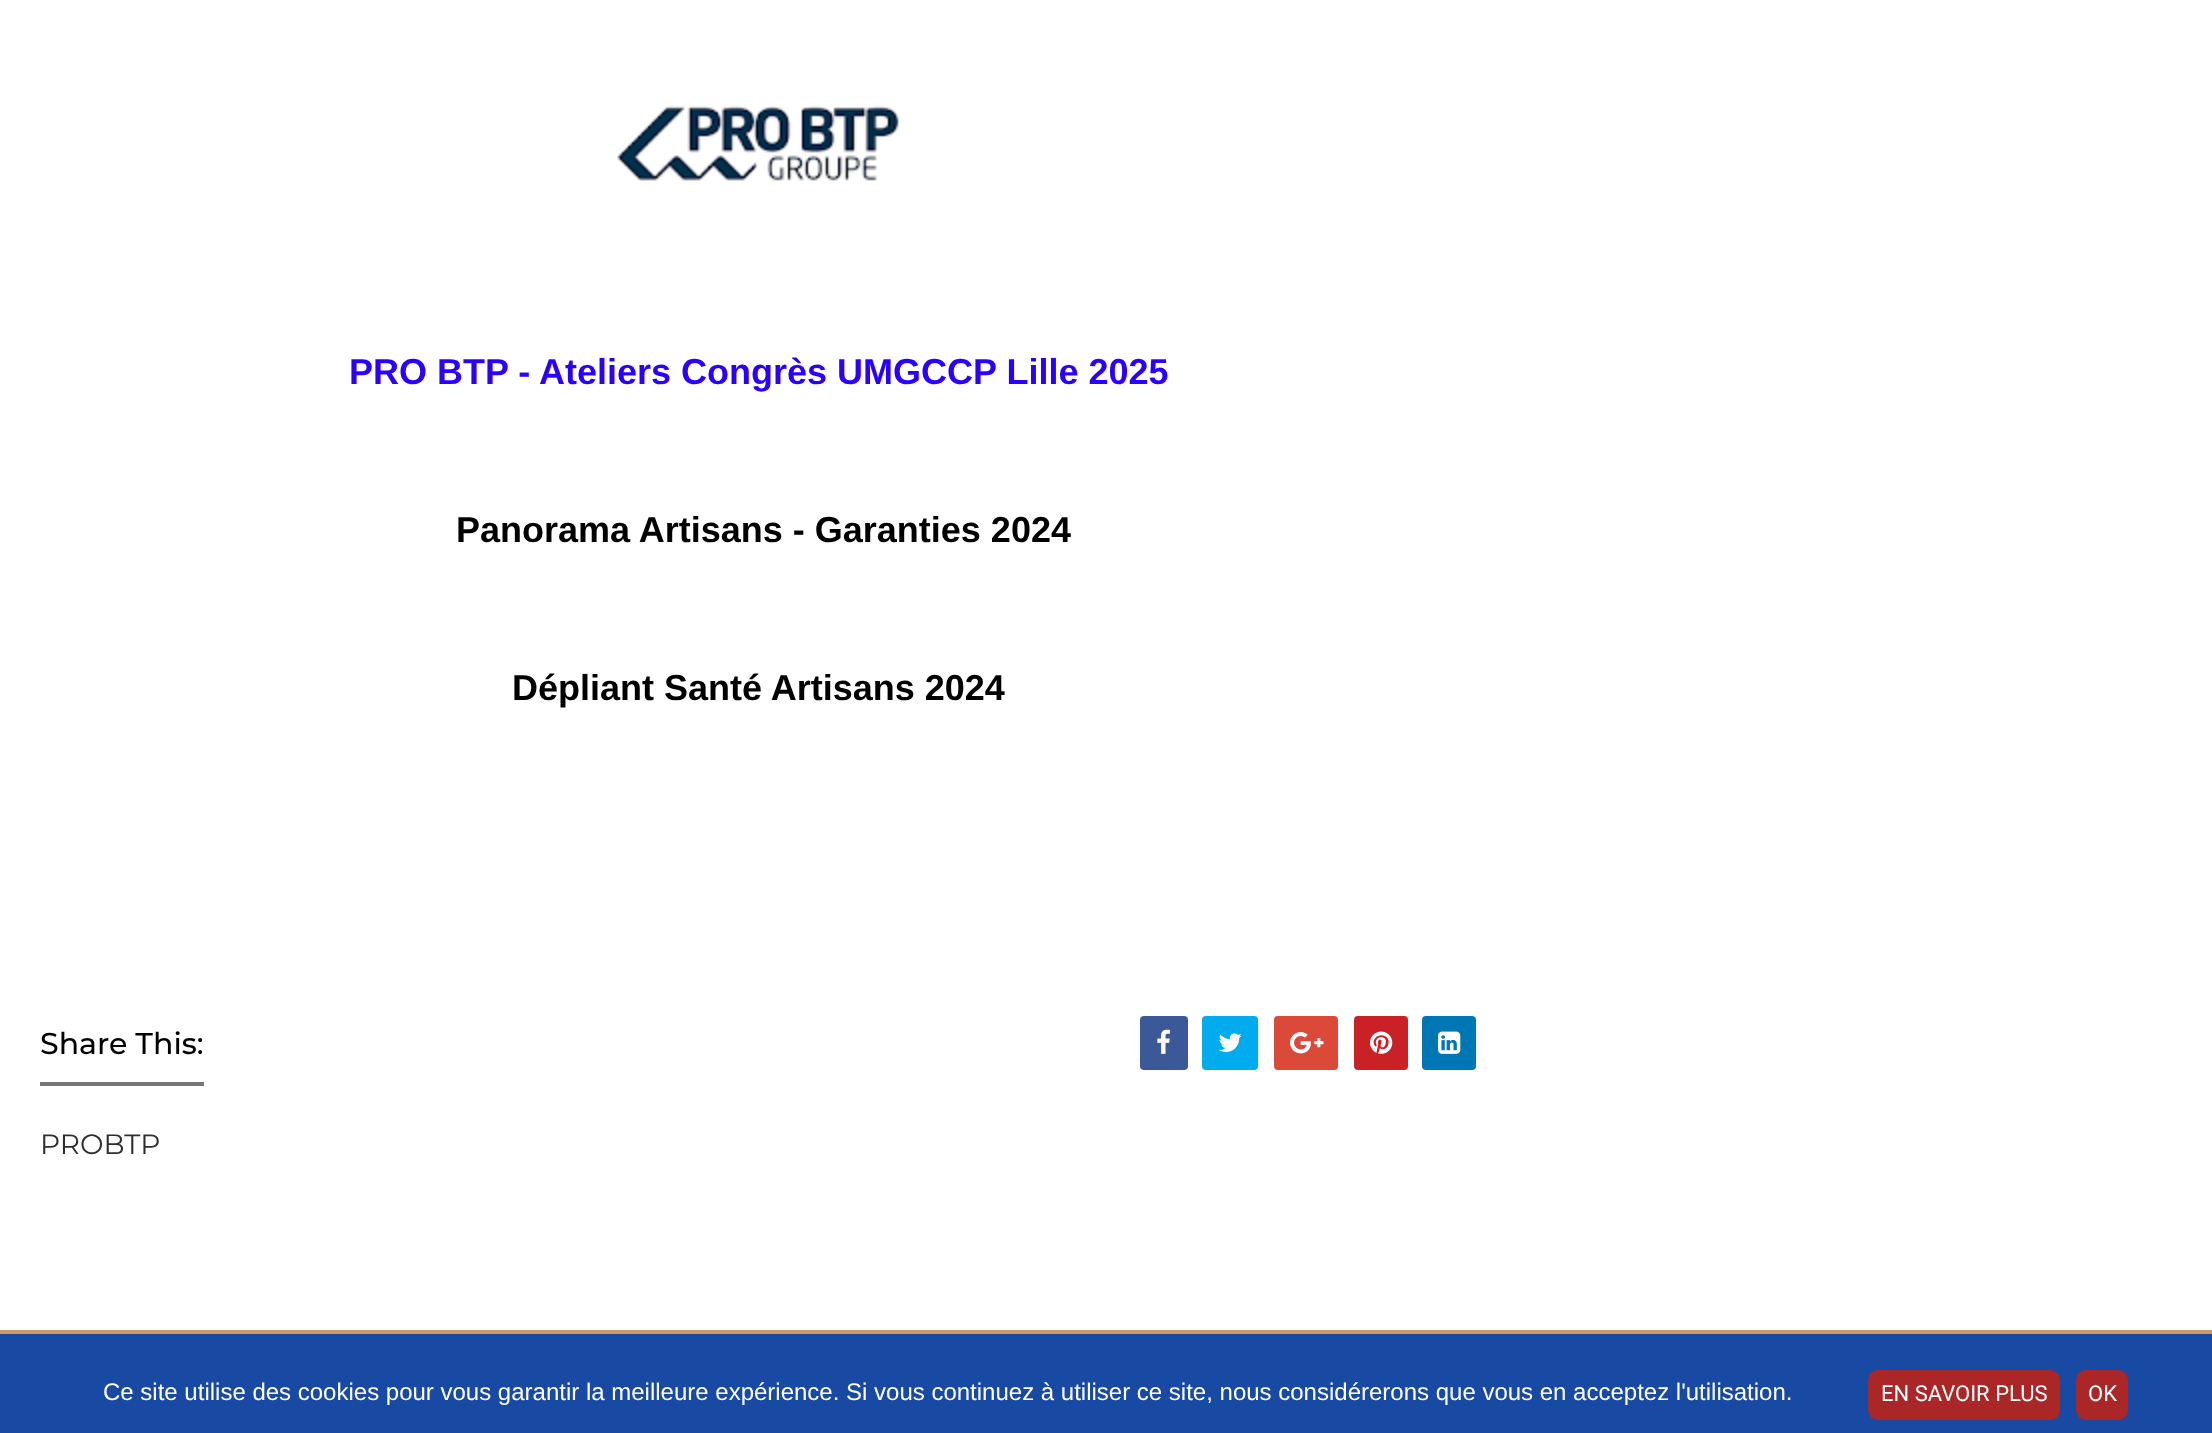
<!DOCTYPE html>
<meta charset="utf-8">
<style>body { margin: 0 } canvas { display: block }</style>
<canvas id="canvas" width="2212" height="1433"></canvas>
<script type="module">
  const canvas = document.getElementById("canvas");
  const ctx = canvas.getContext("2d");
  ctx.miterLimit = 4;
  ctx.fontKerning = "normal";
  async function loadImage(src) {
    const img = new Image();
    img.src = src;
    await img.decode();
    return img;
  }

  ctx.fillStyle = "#ffffff";
  ctx.fillRect(0, 0, 2212, 1433);
  ctx.drawImage(await loadImage("img1.png"), 617, 105, 282, 76);
  ctx.font = "bold 36px Liberation Sans";
  ctx.fillStyle = "#2b00fe";
  ctx.fillText("PRO BTP - Ateliers Congrès UMGCCP Lille 2025", 349, 384);
  ctx.fillStyle = "#000000";
  ctx.fillText("Panorama Artisans - Garanties 2024", 456, 542);
  ctx.fillText("Dépliant Santé Artisans 2024", 512, 700);
  ctx.fillStyle = "#777777";
  ctx.fillRect(40, 1082, 164, 4);
  ctx.font = "500 30px Montserrat";
  ctx.fillStyle = "#000000";
  ctx.fillText("Share This:", 40, 1054);
  ctx.fillStyle = "#3b5998";
  ctx.beginPath();
  ctx.roundRect(1140, 1016, 48, 54, 4);
  ctx.fill();
  ctx.drawImage(await loadImage("img2.png"), 1157, 1029, 13, 25);
  ctx.fillStyle = "#00acee";
  ctx.beginPath();
  ctx.roundRect(1202, 1016, 56, 54, 4);
  ctx.fill();
  ctx.drawImage(await loadImage("img3.png"), 1218, 1033, 24, 19);
  ctx.fillStyle = "#db4a39";
  ctx.beginPath();
  ctx.roundRect(1274, 1016, 64, 54, 4);
  ctx.fill();
  ctx.drawImage(await loadImage("img4.png"), 1290, 1032, 34, 22);
  ctx.fillStyle = "#ca2127";
  ctx.beginPath();
  ctx.roundRect(1354, 1016, 54, 54, 4);
  ctx.fill();
  ctx.drawImage(await loadImage("img5.png"), 1370, 1031, 23, 23);
  ctx.fillStyle = "#0077b5";
  ctx.beginPath();
  ctx.roundRect(1422, 1016, 54, 54, 4);
  ctx.fill();
  ctx.drawImage(await loadImage("img6.png"), 1438, 1031, 23, 23);
  ctx.font = "28px Montserrat";
  ctx.fillStyle = "#2e2e2e";
  ctx.fillText("PROBTP", 40, 1154);
  ctx.fillStyle = "#1849a3";
  ctx.fillRect(0, 1334, 2212, 99);
  ctx.fillStyle = "#c69c6d";
  ctx.fillRect(0, 1330, 2212, 4);
  ctx.font = "24px Liberation Sans";
  ctx.fillStyle = "#ffffff";
  ctx.fillText("Ce site utilise des cookies pour vous garantir la meilleure expérience. Si vous continuez à utiliser ce site, nous considérerons que vous en acceptez l'utilisation.", 103, 1400);
  ctx.fillStyle = "#ab2727";
  ctx.beginPath();
  ctx.roundRect(1868, 1370, 192, 50, 10);
  ctx.fill();
  ctx.font = "22px Roboto";
  ctx.fillStyle = "#ffffff";
  ctx.fillText("EN SAVOIR PLUS", 1881, 1401);
  ctx.fillStyle = "#ab2727";
  ctx.beginPath();
  ctx.roundRect(2076, 1370, 52, 50, 10);
  ctx.fill();
  ctx.fillStyle = "#ffffff";
  ctx.fillText("OK", 2088, 1401);
</script>
